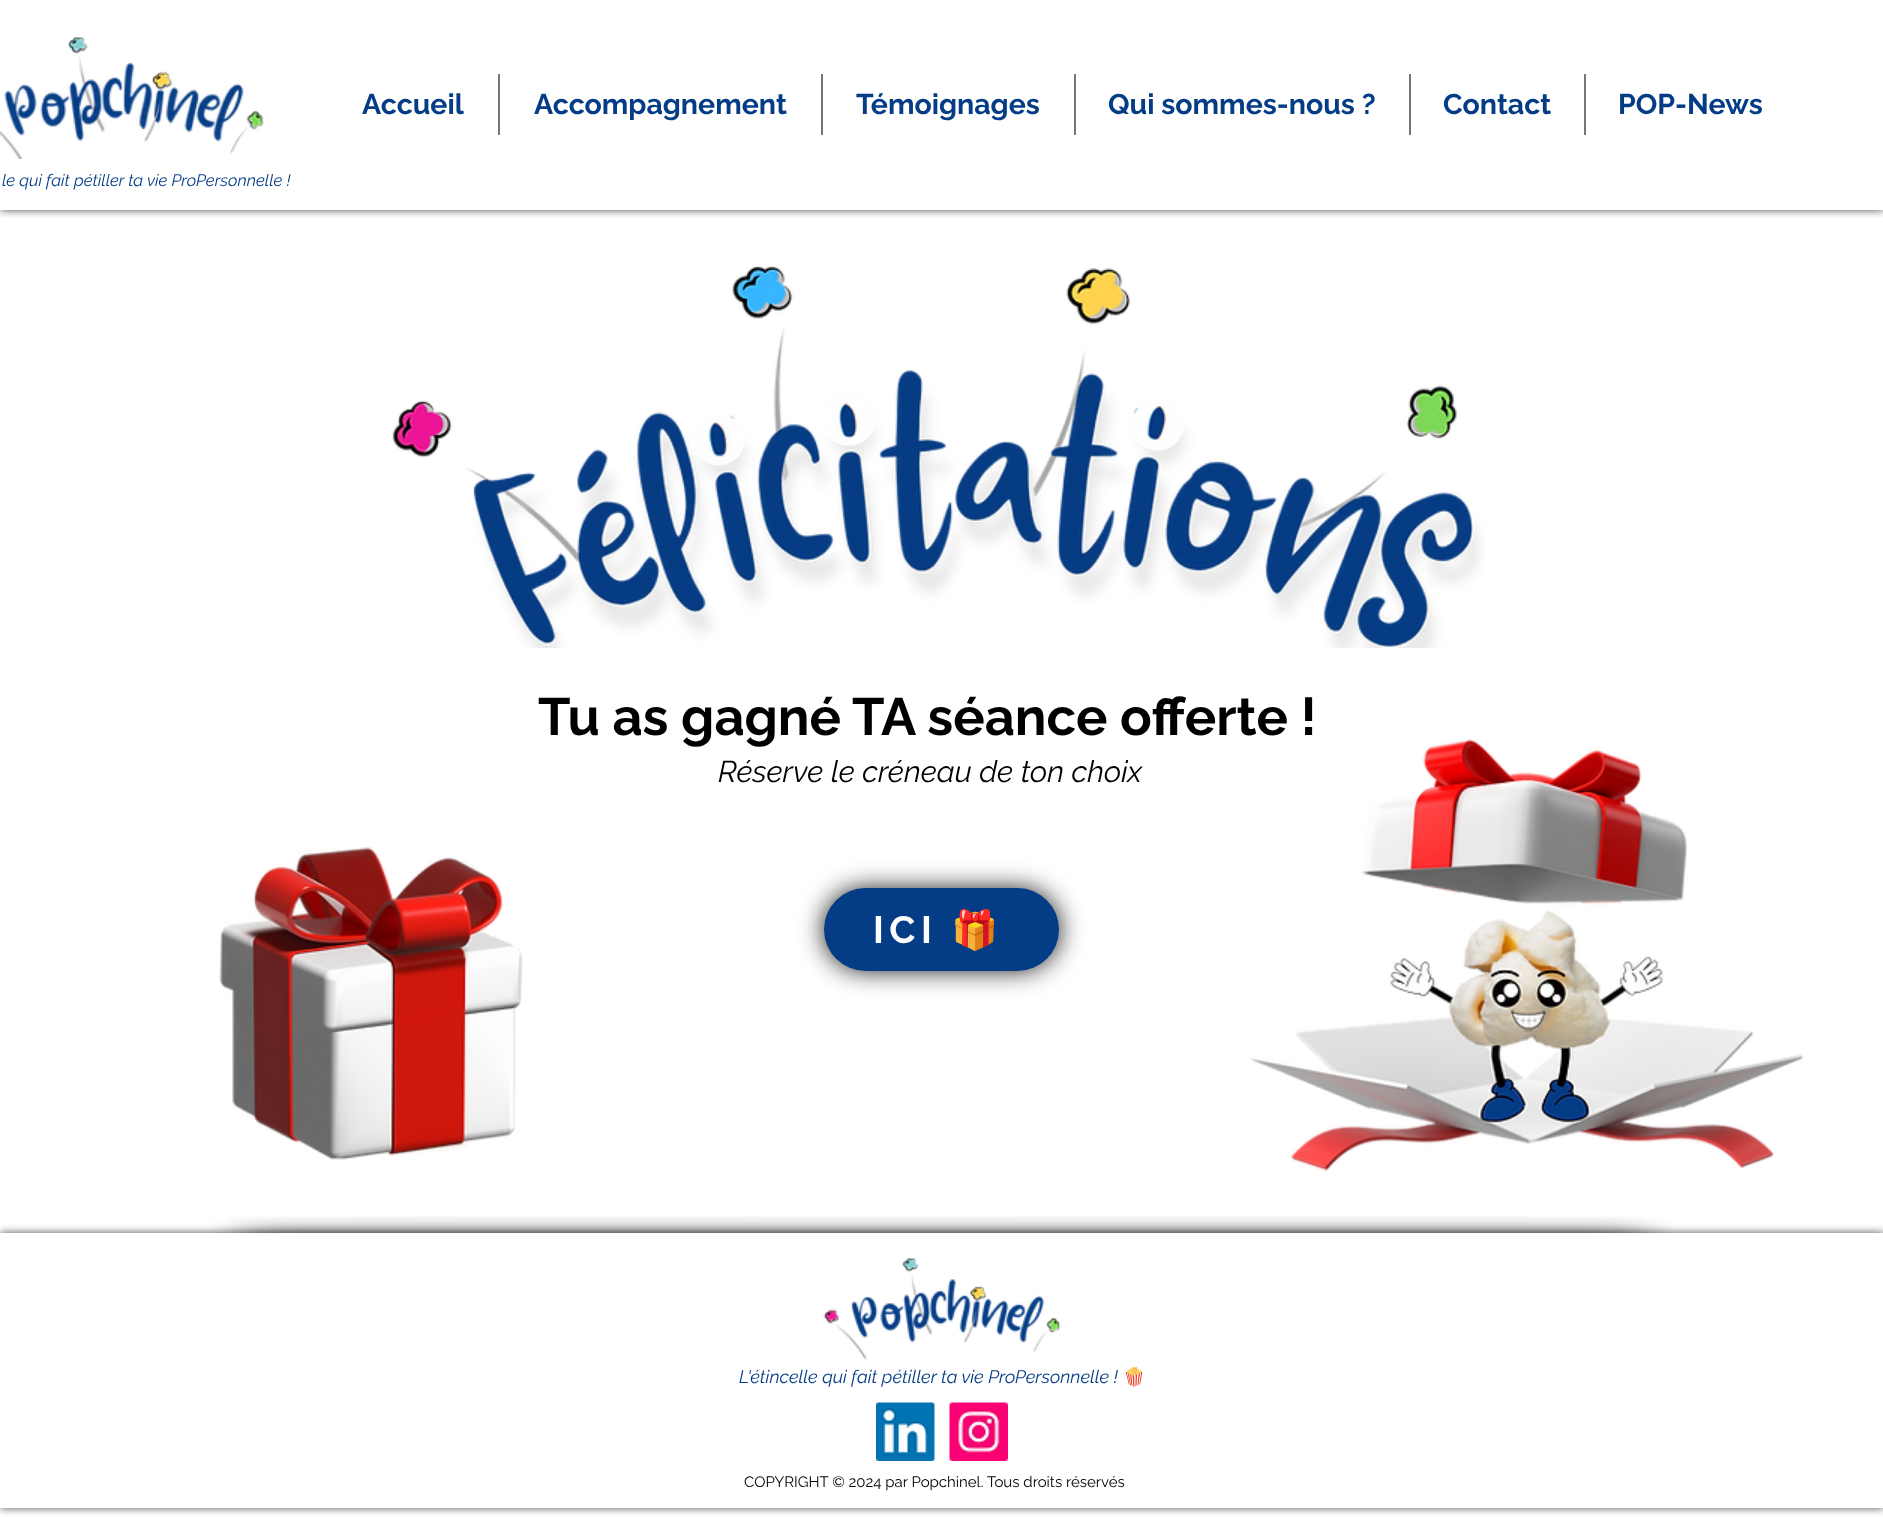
<!DOCTYPE html>
<meta charset="utf-8">
<style>body { margin: 0 } canvas { display: block }</style>
<canvas id="canvas" width="1883" height="1517"></canvas>
<script type="module">
  const canvas = document.getElementById("canvas");
  const ctx = canvas.getContext("2d");
  ctx.miterLimit = 4;
  ctx.fontKerning = "normal";
  async function loadImage(src) {
    const img = new Image();
    img.src = src;
    await img.decode();
    return img;
  }

  ctx.fillStyle = "#ffffff";
  ctx.fillRect(0, 0, 1883, 1517);
  ctx.save();
  ctx.beginPath();
  ctx.rect(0, 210, 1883, 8);
  ctx.clip();
  ctx.fillStyle = "rgba(0, 0, 0, 0.7)";
  ctx.filter = "blur(4px)";
  ctx.beginPath();
  ctx.rect(0, 0, 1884, 210);
  ctx.fill();
  ctx.filter = "none";
  ctx.restore();
  ctx.drawImage(await loadImage("img1.png"), 0, 37, 265, 122);
  ctx.font = "bold 28.5px Raleway";
  ctx.fillStyle = "#043c86";
  ctx.fillText("Accueil", 362, 114);
  ctx.fillStyle = "#757575";
  ctx.fillRect(498, 74, 2, 61);
  ctx.fillStyle = "#043c86";
  ctx.fillText("Accompagnement", 534, 114);
  ctx.fillStyle = "#757575";
  ctx.fillRect(821, 74, 2, 61);
  ctx.fillStyle = "#043c86";
  ctx.fillText("Témoignages", 856, 114);
  ctx.fillStyle = "#757575";
  ctx.fillRect(1074, 74, 2, 61);
  ctx.fillStyle = "#043c86";
  ctx.fillText("Qui sommes-nous ?", 1108, 114);
  ctx.fillStyle = "#757575";
  ctx.fillRect(1409, 74, 2, 61);
  ctx.fillStyle = "#043c86";
  ctx.fillText("Contact", 1443, 114);
  ctx.fillStyle = "#757575";
  ctx.fillRect(1584, 74, 2, 61);
  ctx.fillStyle = "#043c86";
  ctx.fillText("POP-News", 1618, 114);
  ctx.font = "italic 16.5px Raleway";
  ctx.fillText("le qui fait pétiller ta vie ProPersonnelle !", 2, 186);
  ctx.drawImage(await loadImage("img2.png"), 392, 266, 1093, 382);
  ctx.drawImage(await loadImage("img3.png"), 219, 847, 304, 313);
  ctx.font = "bold 52.5px Raleway";
  ctx.fillStyle = "#000000";
  ctx.fillText("Tu as gagné TA séance offerte !", 538, 735);
  ctx.font = "italic 30px Raleway";
  ctx.fillText("Réserve le créneau de ton choix", 718, 782);
  ctx.drawImage(await loadImage("img4.png"), 1250, 739, 554, 432);
  ctx.filter = "blur(13.5px)";
  ctx.beginPath();
  ctx.roundRect(825, 890, 233, 79, 39.5);
  ctx.fill();
  ctx.filter = "none";
  ctx.fillStyle = "#043c86";
  ctx.beginPath();
  ctx.roundRect(824, 888, 235, 83, 41.5);
  ctx.fill();
  ctx.letterSpacing = "5.5px";
  ctx.font = "bold 38px Raleway";
  ctx.fillStyle = "#ffffff";
  ctx.fillText("ICI", 873, 943);
  ctx.font = "bold 38px Noto Color Emoji";
  ctx.fillText("🎁", 951, 943);
  ctx.save();
  ctx.beginPath();
  ctx.moveTo(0, 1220);
  ctx.lineTo(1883, 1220);
  ctx.lineTo(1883, 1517);
  ctx.lineTo(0, 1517);
  ctx.closePath();
  ctx.moveTo(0, 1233);
  ctx.lineTo(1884, 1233);
  ctx.lineTo(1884, 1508);
  ctx.lineTo(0, 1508);
  ctx.closePath();
  ctx.clip("evenodd");
  ctx.fillStyle = "rgba(0, 0, 0, 0.7)";
  ctx.filter = "blur(4px)";
  ctx.beginPath();
  ctx.rect(0, 1233, 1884, 275);
  ctx.fill();
  ctx.filter = "none";
  ctx.restore();
  ctx.fillStyle = "rgba(255, 255, 255, 0.6)";
  ctx.fillRect(0, 1507, 1883, 1);
  ctx.drawImage(await loadImage("img5.png"), 212, 1216, 145, 17);
  ctx.drawImage(await loadImage("img6.png"), 357, 1216, 1170, 17);
  ctx.drawImage(await loadImage("img7.png"), 1527, 1216, 145, 17);
  ctx.drawImage(await loadImage("img8.png"), 823, 1258, 238, 102);
  ctx.letterSpacing = "0px";
  ctx.font = "italic 18px Raleway";
  ctx.fillStyle = "#043c86";
  ctx.fillText("L'étincelle qui fait pétiller ta vie ProPersonnelle !", 739, 1383);
  ctx.font = "18px Noto Color Emoji";
  ctx.fillText("🍿", 1123, 1383);
  ctx.drawImage(await loadImage("img9.png"), 876, 1402, 59, 59);
  ctx.drawImage(await loadImage("img10.png"), 949, 1402, 59, 59);
  ctx.font = "15px Raleway";
  ctx.fillStyle = "#000000";
  ctx.fillText("COPYRIGHT © 2024 par Popchinel. Tous droits réservés", 744, 1487);
</script>
